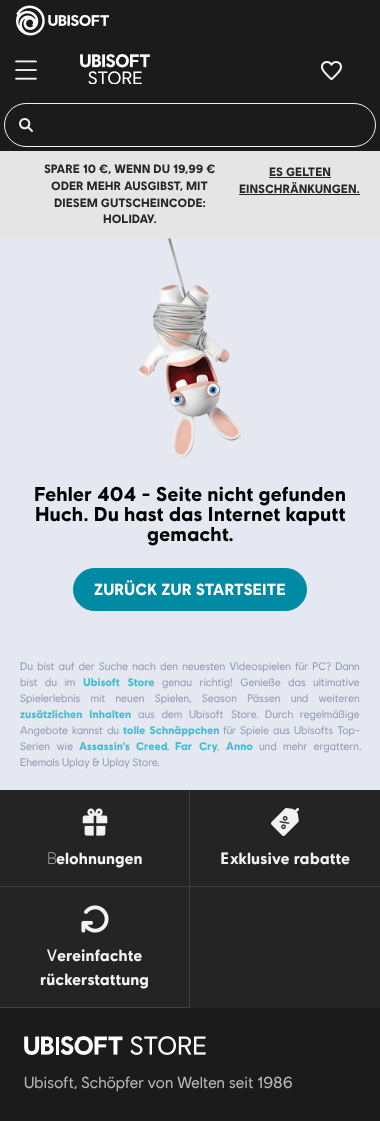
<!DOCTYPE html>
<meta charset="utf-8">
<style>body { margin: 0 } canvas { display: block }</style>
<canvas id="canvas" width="380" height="1121"></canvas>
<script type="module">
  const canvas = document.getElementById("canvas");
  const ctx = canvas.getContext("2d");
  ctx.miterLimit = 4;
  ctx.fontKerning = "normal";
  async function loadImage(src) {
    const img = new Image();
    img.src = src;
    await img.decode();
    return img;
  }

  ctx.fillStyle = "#e5e8f0";
  ctx.fillRect(0, 0, 380, 1121);
  ctx.fillStyle = "#1b1b1b";
  ctx.fillRect(0, 0, 380, 151);
  ctx.drawImage(await loadImage("img1.png"), 16, 5, 93, 31);
  ctx.drawImage(await loadImage("img2.png"), 15, 60, 22, 20);
  ctx.drawImage(await loadImage("img3.png"), 80, 54, 70, 30);
  ctx.drawImage(await loadImage("img4.png"), 321, 61, 21, 19);
  ctx.beginPath();
  ctx.roundRect(4.5, 103.5, 371, 43, 21.5);
  ctx.strokeStyle = "#f2f2f2";
  ctx.stroke();
  ctx.drawImage(await loadImage("img5.png"), 19, 118, 14, 14);
  ctx.fillStyle = "#e5e5e5";
  ctx.fillRect(0, 151, 380, 87);
  ctx.font = "bold 12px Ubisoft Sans";
  ctx.fillStyle = "#262626";
  ctx.fillText("SPARE 10 €, WENN DU 19,99 €", 44, 173);
  ctx.fillText("ODER MEHR AUSGIBST, MIT", 51, 190);
  ctx.fillText("DIESEM GUTSCHEINCODE:", 54, 207);
  ctx.fillText("HOLIDAY.", 103, 223);
  ctx.fillText("ES GELTEN", 269, 176);
  ctx.fillRect(269, 177, 62, 1);
  ctx.fillText("EINSCHRÄNKUNGEN.", 239, 193);
  ctx.fillRect(239, 194, 121, 1);
  ctx.drawImage(await loadImage("img6.png"), 138, 238, 103, 220);
  ctx.font = "bold 20px Ubisoft Sans";
  ctx.fillStyle = "#000000";
  ctx.fillText("Fehler 404 - Seite nicht gefunden", 34, 501);
  ctx.fillText("Huch. Du hast das Internet kaputt", 35, 521);
  ctx.fillText("gemacht.", 147, 541);
  ctx.fillStyle = "#008aa4";
  ctx.beginPath();
  ctx.roundRect(73.5, 568.5, 233, 42, 21);
  ctx.fill();
  ctx.strokeStyle = "#008aa4";
  ctx.stroke();
  ctx.font = "bold 16px Ubisoft Sans";
  ctx.fillStyle = "#ffffff";
  ctx.fillText("ZURÜCK ZUR STARTSEITE", 94, 595);
  ctx.wordSpacing = "1.6px";
  ctx.font = "11px Ubisoft Sans";
  ctx.fillStyle = "#929db6";
  ctx.fillText("Du bist auf der Suche nach den neuesten Videospielen für PC? Dann", 20, 670);
  ctx.wordSpacing = "5px";
  ctx.fillText("bist du im", 20, 686);
  ctx.font = "bold 11px Ubisoft Sans";
  ctx.fillStyle = "#35c1cf";
  ctx.fillText("Ubisoft Store", 83, 686);
  ctx.font = "11px Ubisoft Sans";
  ctx.fillStyle = "#929db6";
  ctx.fillText("genau richtig! Genieße", 162, 686);
  ctx.fillText("das ultimative", 288, 686);
  ctx.wordSpacing = "7.75px";
  ctx.fillText("Spielerlebnis mit neuen Spielen, Season Pässen und weiteren", 20, 702);
  ctx.wordSpacing = "4px";
  ctx.font = "bold 11px Ubisoft Sans";
  ctx.fillStyle = "#35c1cf";
  ctx.fillText("zusätzlichen Inhalten", 20, 718);
  ctx.font = "11px Ubisoft Sans";
  ctx.fillStyle = "#929db6";
  ctx.fillText("aus dem Ubisoft", 138, 718);
  ctx.fillText("Store. Durch regelmäßige", 231, 718);
  ctx.wordSpacing = "1.5px";
  ctx.fillText("Angebote kannst du", 20, 734);
  ctx.font = "bold 11px Ubisoft Sans";
  ctx.fillStyle = "#35c1cf";
  ctx.fillText("tolle Schnäppchen", 123, 734);
  ctx.font = "11px Ubisoft Sans";
  ctx.fillStyle = "#929db6";
  ctx.fillText("für Spiele aus Ubisofts Top-", 223, 734);
  ctx.wordSpacing = "4px";
  ctx.fillText("Serien wie", 20, 750);
  ctx.wordSpacing = "0px";
  ctx.font = "bold 11px Ubisoft Sans";
  ctx.fillStyle = "#35c1cf";
  ctx.fillText("Assassin's", 79, 750);
  ctx.fillText("Creed", 136, 750);
  ctx.font = "11px Ubisoft Sans";
  ctx.fillStyle = "#929db6";
  ctx.fillText(",", 167, 750);
  ctx.wordSpacing = "4px";
  ctx.font = "bold 11px Ubisoft Sans";
  ctx.fillStyle = "#35c1cf";
  ctx.fillText("Far Cry", 175, 750);
  ctx.wordSpacing = "0px";
  ctx.font = "11px Ubisoft Sans";
  ctx.fillStyle = "#929db6";
  ctx.fillText(",", 217, 750);
  ctx.font = "bold 11px Ubisoft Sans";
  ctx.fillStyle = "#35c1cf";
  ctx.fillText("Anno", 226, 750);
  ctx.wordSpacing = "4px";
  ctx.font = "11px Ubisoft Sans";
  ctx.fillStyle = "#929db6";
  ctx.fillText("und mehr ergattern.", 259, 750);
  ctx.wordSpacing = "0px";
  ctx.fillText("Ehemals Uplay & Uplay Store.", 20, 766);
  ctx.fillStyle = "#1b1b1b";
  ctx.fillRect(0, 1008, 380, 113);
  ctx.fillStyle = "#242424";
  ctx.fillRect(0, 790, 380, 218);
  ctx.fillStyle = "#3f3f3f";
  ctx.fillRect(189, 790, 1, 218);
  ctx.fillRect(0, 886, 380, 1);
  ctx.drawImage(await loadImage("img7.png"), 82, 808, 26, 28);
  ctx.font = "100 16px Noto Sans";
  ctx.fillStyle = "#f2f2f2";
  ctx.fillText("B", 47, 864);
  ctx.font = "bold 16px Ubisoft Sans";
  ctx.fillText("elohnungen", 56, 864);
  ctx.drawImage(await loadImage("img8.png"), 271, 808, 28, 28);
  ctx.font = "bold 16px Noto Sans";
  ctx.fillText("E", 220, 864);
  ctx.font = "bold 16px Ubisoft Sans";
  ctx.fillText("xklusive rabatte", 230, 864);
  ctx.fillStyle = "#3f3f3f";
  ctx.fillRect(0, 1007, 190, 1);
  ctx.drawImage(await loadImage("img9.png"), 81, 905, 28, 28);
  ctx.font = "500 16px Noto Sans";
  ctx.fillStyle = "#f2f2f2";
  ctx.fillText("V", 47, 961);
  ctx.font = "bold 16px Ubisoft Sans";
  ctx.fillText("ereinfachte", 57, 961);
  ctx.fillText("rückerstattung", 40, 985);
  ctx.drawImage(await loadImage("img10.png"), 24, 1036, 182, 19);
  ctx.font = "16px Ubisoft Sans";
  ctx.fillStyle = "#b5b5b5";
  ctx.fillText("Ubisoft, Schöpfer von Welten seit 1986", 24, 1088);
</script>
